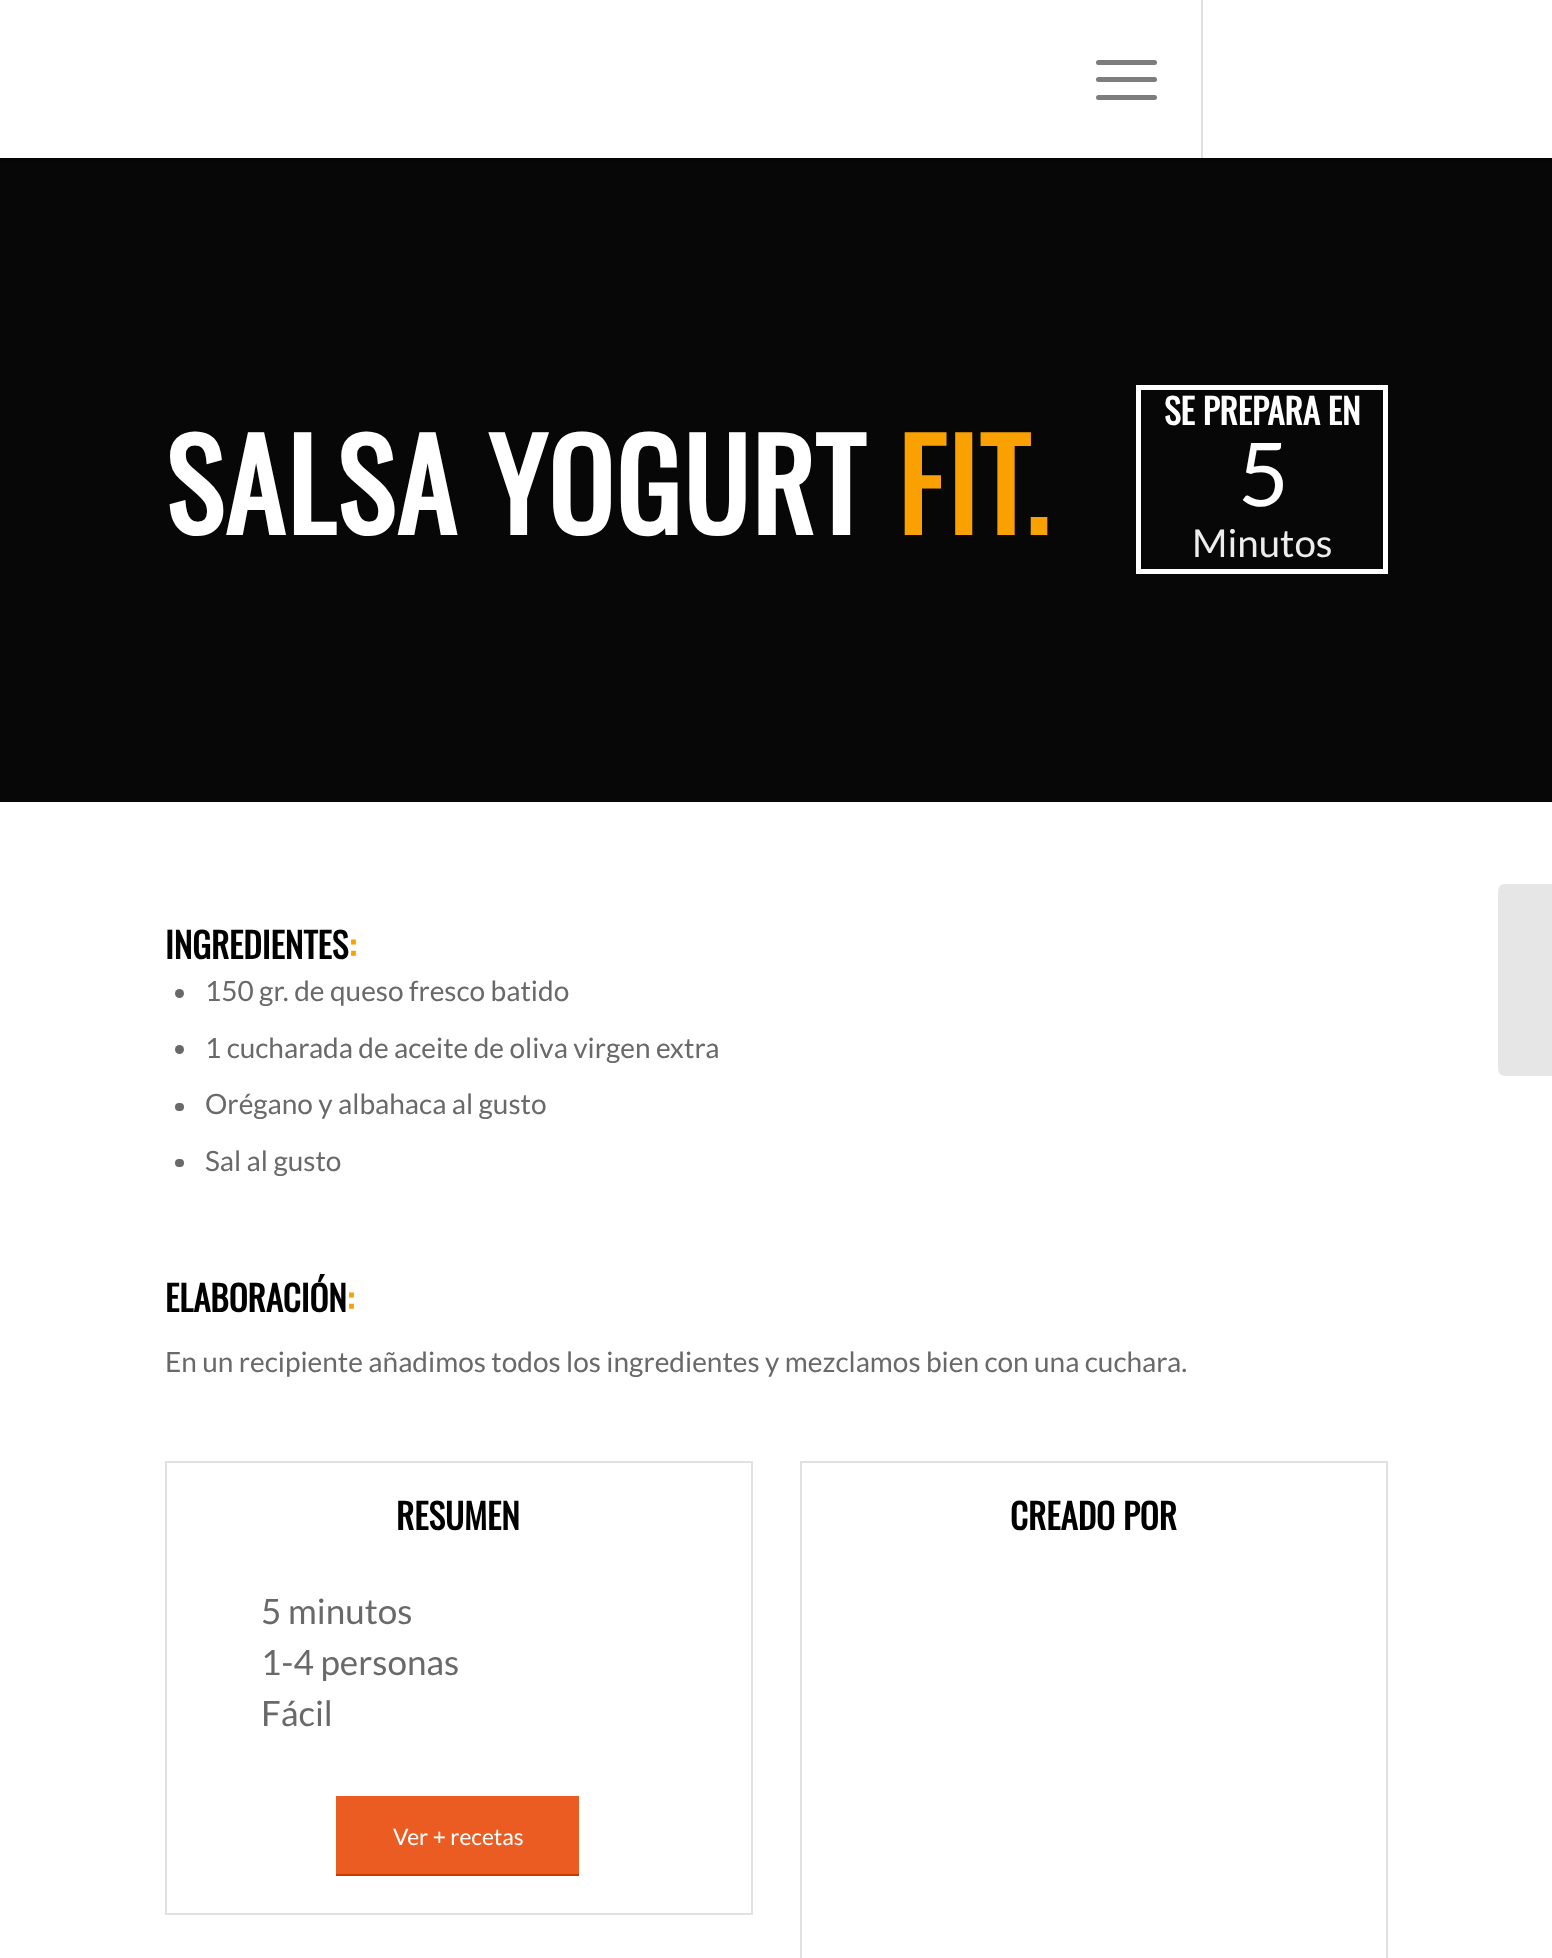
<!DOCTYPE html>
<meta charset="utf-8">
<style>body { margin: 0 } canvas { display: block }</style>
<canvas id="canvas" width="1552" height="1958"></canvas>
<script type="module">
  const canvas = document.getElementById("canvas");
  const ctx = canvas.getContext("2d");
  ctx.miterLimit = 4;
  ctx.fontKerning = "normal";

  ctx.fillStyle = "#ffffff";
  ctx.fillRect(0, 0, 1552, 1958);
  ctx.fillStyle = "#070707";
  ctx.fillRect(0, 158, 1552, 644);
  ctx.fillStyle = "rgba(0, 0, 0, 0.1)";
  ctx.filter = "blur(2px)";
  ctx.beginPath();
  ctx.rect(-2, -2, 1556, 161);
  ctx.fill();
  ctx.filter = "none";
  ctx.fillStyle = "#ffffff";
  ctx.fillRect(0, 0, 1552, 158);
  ctx.fillStyle = "#e1e1e1";
  ctx.fillRect(1201, 0, 2, 158);
  ctx.fillStyle = "#7d7d7d";
  ctx.beginPath();
  ctx.roundRect(1096, 77, 61, 5, 2.5);
  ctx.fill();
  ctx.beginPath();
  ctx.roundRect(1096, 60, 61, 5, 2.5);
  ctx.fill();
  ctx.beginPath();
  ctx.roundRect(1096, 95, 61, 5, 2.5);
  ctx.fill();
  ctx.letterSpacing = "1.75px";
  ctx.font = "bold 122.5px Oswald";
  ctx.fillStyle = "#ffffff";
  ctx.fillText("SALSA YOGURT", 165, 535);
  ctx.fillStyle = "#f8a100";
  ctx.fillText("FIT.", 897, 535);
  ctx.strokeStyle = "#ffffff";
  ctx.lineWidth = 5;
  ctx.strokeRect(1138.5, 387.5, 247, 184);
  ctx.letterSpacing = "0px";
  ctx.font = "bold 35px Oswald";
  ctx.fillStyle = "#ffffff";
  ctx.fillText("SE PREPARA EN", 1164, 425);
  ctx.letterSpacing = "-4px";
  ctx.font = "88px Lato";
  ctx.fillText("5", 1238, 506);
  ctx.letterSpacing = "0px";
  ctx.font = "38.5px Lato";
  ctx.fillStyle = "#ededed";
  ctx.fillText("Minutos", 1192, 557);
  ctx.font = "bold 35px Oswald";
  ctx.fillStyle = "#000000";
  ctx.fillText("INGREDIENTES", 165, 959);
  ctx.fillStyle = "#f8a100";
  ctx.fillText(":", 349, 959);
  ctx.fillStyle = "#696969";
  ctx.beginPath();
  ctx.arc(179.5, 993.5, 4.5, 0, Math.PI * 2);
  ctx.fill();
  ctx.font = "28px Lato";
  ctx.fillText("150 gr. de queso fresco batido", 205, 1001);
  ctx.beginPath();
  ctx.arc(179.5, 1049.5, 4.5, 0, Math.PI * 2);
  ctx.fill();
  ctx.fillText("1 cucharada de aceite de oliva virgen extra", 205, 1058);
  ctx.beginPath();
  ctx.roundRect(175, 1103, 9, 8, 4);
  ctx.fill();
  ctx.fillText("Orégano y albahaca al gusto", 205, 1114);
  ctx.beginPath();
  ctx.roundRect(175, 1159, 9, 8, 4);
  ctx.fill();
  ctx.fillText("Sal al gusto", 205, 1171);
  ctx.font = "bold 35px Oswald";
  ctx.fillStyle = "#000000";
  ctx.fillText("ELABORACIÓN", 165, 1312);
  ctx.fillStyle = "#f8a100";
  ctx.fillText(":", 347, 1312);
  ctx.font = "28px Lato";
  ctx.fillStyle = "#696969";
  ctx.fillText("En un recipiente añadimos todos los ingredientes y mezclamos bien con una cuchara.", 165, 1372);
  ctx.strokeStyle = "#e1e1e1";
  ctx.lineWidth = 2;
  ctx.strokeRect(166, 1462, 586, 452);
  ctx.font = "bold 35px Oswald";
  ctx.fillStyle = "#000000";
  ctx.fillText("RESUMEN", 396, 1530);
  ctx.font = "35px Lato";
  ctx.fillStyle = "#696969";
  ctx.fillText("5 minutos", 261, 1624);
  ctx.fillText("1-4 personas", 261, 1675);
  ctx.fillText("Fácil", 261, 1726);
  ctx.fillStyle = "#eb5c23";
  ctx.fillRect(336, 1796, 243, 78);
  ctx.fillStyle = "#c93a01";
  ctx.fillRect(336, 1874, 243, 2);
  ctx.font = "22.75px Lato";
  ctx.fillStyle = "#ffffff";
  ctx.fillText("Ver + recetas", 393, 1845);
  ctx.strokeRect(801, 1462, 586, 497);
  ctx.font = "bold 35px Oswald";
  ctx.fillStyle = "#000000";
  ctx.fillText("CREADO POR", 1010, 1530);
  ctx.fillStyle = "#e6e6e6";
  ctx.beginPath();
  ctx.roundRect(1498, 884, 54, 192, [7, 0, 0, 7]);
  ctx.fill();
</script>
